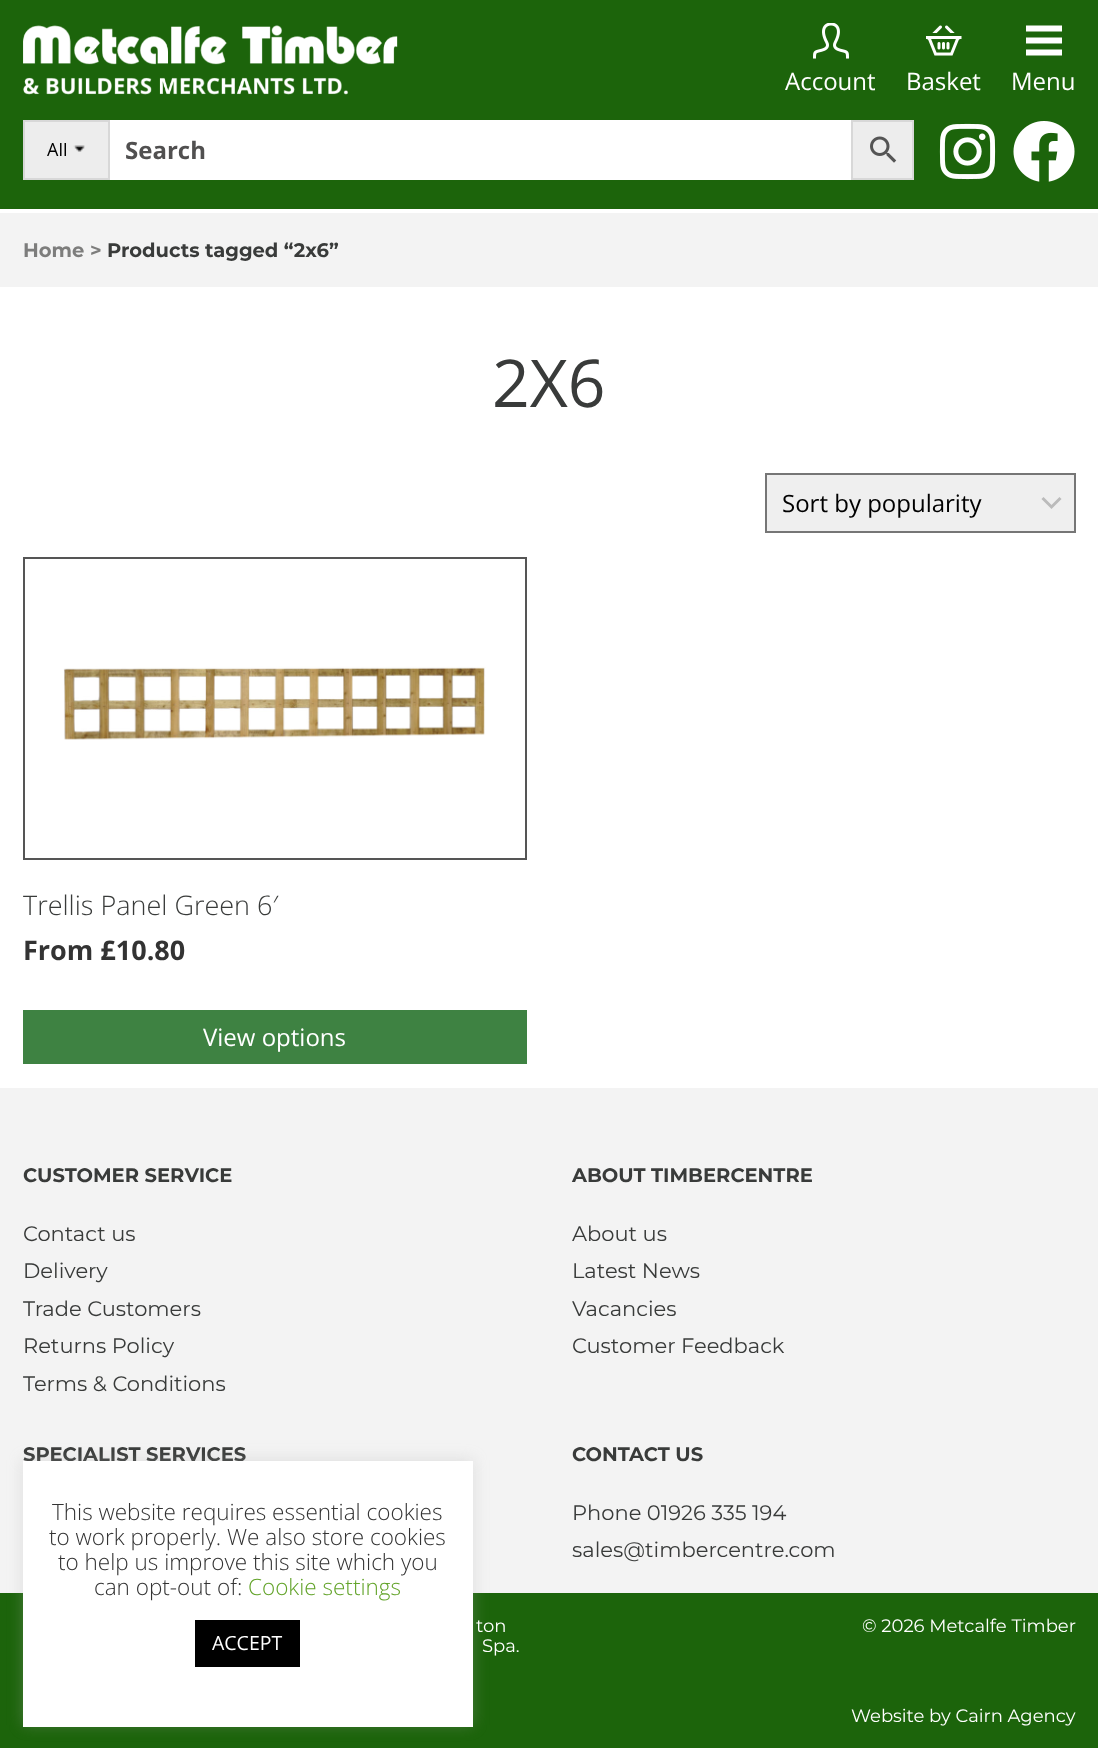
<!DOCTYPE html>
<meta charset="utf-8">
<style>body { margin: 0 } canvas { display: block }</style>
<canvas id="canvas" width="1098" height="1749"></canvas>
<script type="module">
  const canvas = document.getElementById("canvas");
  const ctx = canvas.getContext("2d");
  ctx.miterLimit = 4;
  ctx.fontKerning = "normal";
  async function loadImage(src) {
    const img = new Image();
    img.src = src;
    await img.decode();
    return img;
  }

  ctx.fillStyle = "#ffffff";
  ctx.fillRect(0, 0, 1098, 1749);
  ctx.fillStyle = "#1c640b";
  ctx.fillRect(0, 0, 1098, 209);
  ctx.drawImage(await loadImage("img1.png"), 23, 25, 375, 70);
  ctx.drawImage(await loadImage("img2.png"), 813, 23, 36, 36);
  ctx.font = "24px Open Sans";
  ctx.fillStyle = "#ffffff";
  ctx.fillText("Account", 785, 90);
  ctx.drawImage(await loadImage("img3.png"), 926, 25, 36, 31);
  ctx.fillText("Basket", 906, 90);
  ctx.beginPath();
  ctx.moveTo(1062, 31.5);
  ctx.lineTo(1026, 31.5);
  ctx.lineTo(1026, 25.5);
  ctx.lineTo(1062, 25.5);
  ctx.closePath();
  ctx.moveTo(1062, 37.5);
  ctx.lineTo(1026, 37.5);
  ctx.lineTo(1026, 43.5);
  ctx.lineTo(1062, 43.5);
  ctx.closePath();
  ctx.moveTo(1062, 49.5);
  ctx.lineTo(1026, 49.5);
  ctx.lineTo(1026, 55.5);
  ctx.lineTo(1062, 55.5);
  ctx.closePath();
  ctx.fill();
  ctx.fillText("Menu", 1011, 90);
  ctx.fillRect(110, 120, 741, 60);
  ctx.fillStyle = "#ededed";
  ctx.beginPath();
  ctx.rect(24, 121, 85, 58);
  ctx.fill();
  ctx.strokeStyle = "#d8d8d8";
  ctx.lineWidth = 2;
  ctx.stroke();
  ctx.save();
  ctx.beginPath();
  ctx.rect(47, 143, 39, 15);
  ctx.clip();
  ctx.font = "18px Open Sans";
  ctx.fillStyle = "#000000";
  ctx.fillText("All", 47, 156);
  ctx.restore();
  ctx.drawImage(await loadImage("img4.png"), 73, 145, 12, 7);
  ctx.font = "bold 24px Open Sans";
  ctx.fillStyle = "#515050";
  ctx.fillText("Search", 125, 159);
  ctx.fillStyle = "#ededed";
  ctx.beginPath();
  ctx.rect(852, 121, 61, 58);
  ctx.fill();
  ctx.stroke();
  ctx.drawImage(await loadImage("img5.png"), 870, 136, 27, 27);
  ctx.drawImage(await loadImage("img6.png"), 939, 123, 57, 57);
  ctx.drawImage(await loadImage("img7.png"), 1013, 121, 62, 61);
  ctx.fillStyle = "#f3f3f3";
  ctx.fillRect(0, 213, 1098, 74);
  ctx.font = "bold 19.5px Montserrat";
  ctx.fillStyle = "#7d7d7c";
  ctx.fillText("Home >", 23, 257);
  ctx.fillStyle = "#393b3a";
  ctx.fillText("Products tagged “2x6”", 107, 257);
  ctx.font = "66px Open Sans";
  ctx.fillText("2X6", 492, 407);
  ctx.fillStyle = "#efefef";
  ctx.fillRect(767, 475, 307, 56);
  ctx.beginPath();
  ctx.moveTo(1042.5, 498);
  ctx.lineTo(1051.5, 507);
  ctx.lineTo(1060.5, 498);
  ctx.strokeStyle = "#bbbbbb";
  ctx.lineWidth = 3;
  ctx.stroke();
  ctx.strokeStyle = "#767676";
  ctx.lineWidth = 2;
  ctx.strokeRect(766, 474, 309, 58);
  ctx.font = "24px Open Sans";
  ctx.fillStyle = "#000000";
  ctx.fillText("Sort by popularity", 782, 512);
  ctx.drawImage(await loadImage("img8.png"), 63, 666, 423, 74);
  ctx.strokeStyle = "#555555";
  ctx.strokeRect(24, 558, 502, 301);
  ctx.font = "300 27px Open Sans";
  ctx.fillStyle = "#393b3a";
  ctx.fillText("Trellis Panel Green 6′", 23, 915);
  ctx.font = "bold 27px Open Sans";
  ctx.fillStyle = "#333333";
  ctx.fillText("From £10.80", 23, 960);
  ctx.fillStyle = "#3e8242";
  ctx.fillRect(23, 1010, 504, 54);
  ctx.font = "24px Open Sans";
  ctx.fillStyle = "#ffffff";
  ctx.fillText("View options", 203, 1046);
  ctx.fillStyle = "#f3f3f3";
  ctx.fillRect(0, 1088, 1098, 505);
  ctx.font = "bold 19.5px Montserrat";
  ctx.fillStyle = "#393b3a";
  ctx.fillText("CUSTOMER SERVICE", 23, 1182);
  ctx.font = "21px Montserrat";
  ctx.fillText("Contact us", 23, 1241);
  ctx.fillText("Delivery", 23, 1278);
  ctx.fillText("Trade Customers", 23, 1316);
  ctx.fillText("Returns Policy", 23, 1353);
  ctx.fillText("Terms & Conditions", 23, 1391);
  ctx.font = "bold 19.5px Montserrat";
  ctx.fillText("ABOUT TIMBERCENTRE", 572, 1182);
  ctx.font = "21px Montserrat";
  ctx.fillText("About us", 572, 1241);
  ctx.fillText("Latest News", 572, 1278);
  ctx.fillText("Vacancies", 572, 1316);
  ctx.fillText("Customer Feedback", 572, 1353);
  ctx.font = "bold 19.5px Montserrat";
  ctx.fillText("SPECIALIST SERVICES", 23, 1461);
  ctx.fillText("CONTACT US", 572, 1461);
  ctx.font = "21px Montserrat";
  ctx.fillText("Phone 01926 335 194", 572, 1520);
  ctx.fillText("sales@timbercentre.com", 572, 1557);
  ctx.fillStyle = "#1c640b";
  ctx.fillRect(0, 1593, 1098, 155);
  ctx.fillStyle = "rgba(172, 171, 171, 0.3)";
  ctx.filter = "blur(7.5px)";
  ctx.beginPath();
  ctx.rect(23, 1460, 450, 265);
  ctx.fill();
  ctx.filter = "none";
  ctx.fillStyle = "#ffffff";
  ctx.fillRect(23, 1461, 450, 266);
  ctx.font = "300 22.5px Open Sans";
  ctx.fillStyle = "#333333";
  ctx.fillText("This website requires essential cookies", 52, 1520);
  ctx.fillText("to work properly. We also store cookies", 49, 1545);
  ctx.fillText("to help us improve this site which you", 58, 1570);
  ctx.fillText("can opt-out of:", 94, 1595);
  ctx.fillStyle = "#62a329";
  ctx.fillText("Cookie settings", 248, 1595);
  ctx.fillStyle = "#000000";
  ctx.fillRect(195, 1620, 105, 47);
  ctx.font = "19.5px Open Sans";
  ctx.fillStyle = "#ffffff";
  ctx.fillText("ACCEPT", 212, 1650);
  ctx.font = "18px Montserrat";
  ctx.fillText("ton", 476, 1632);
  ctx.fillText("Spa.", 482, 1652);
  ctx.fillText("© 2026 Metcalfe Timber", 862, 1632);
  ctx.fillText("Website by Cairn Agency", 851, 1722);
</script>
